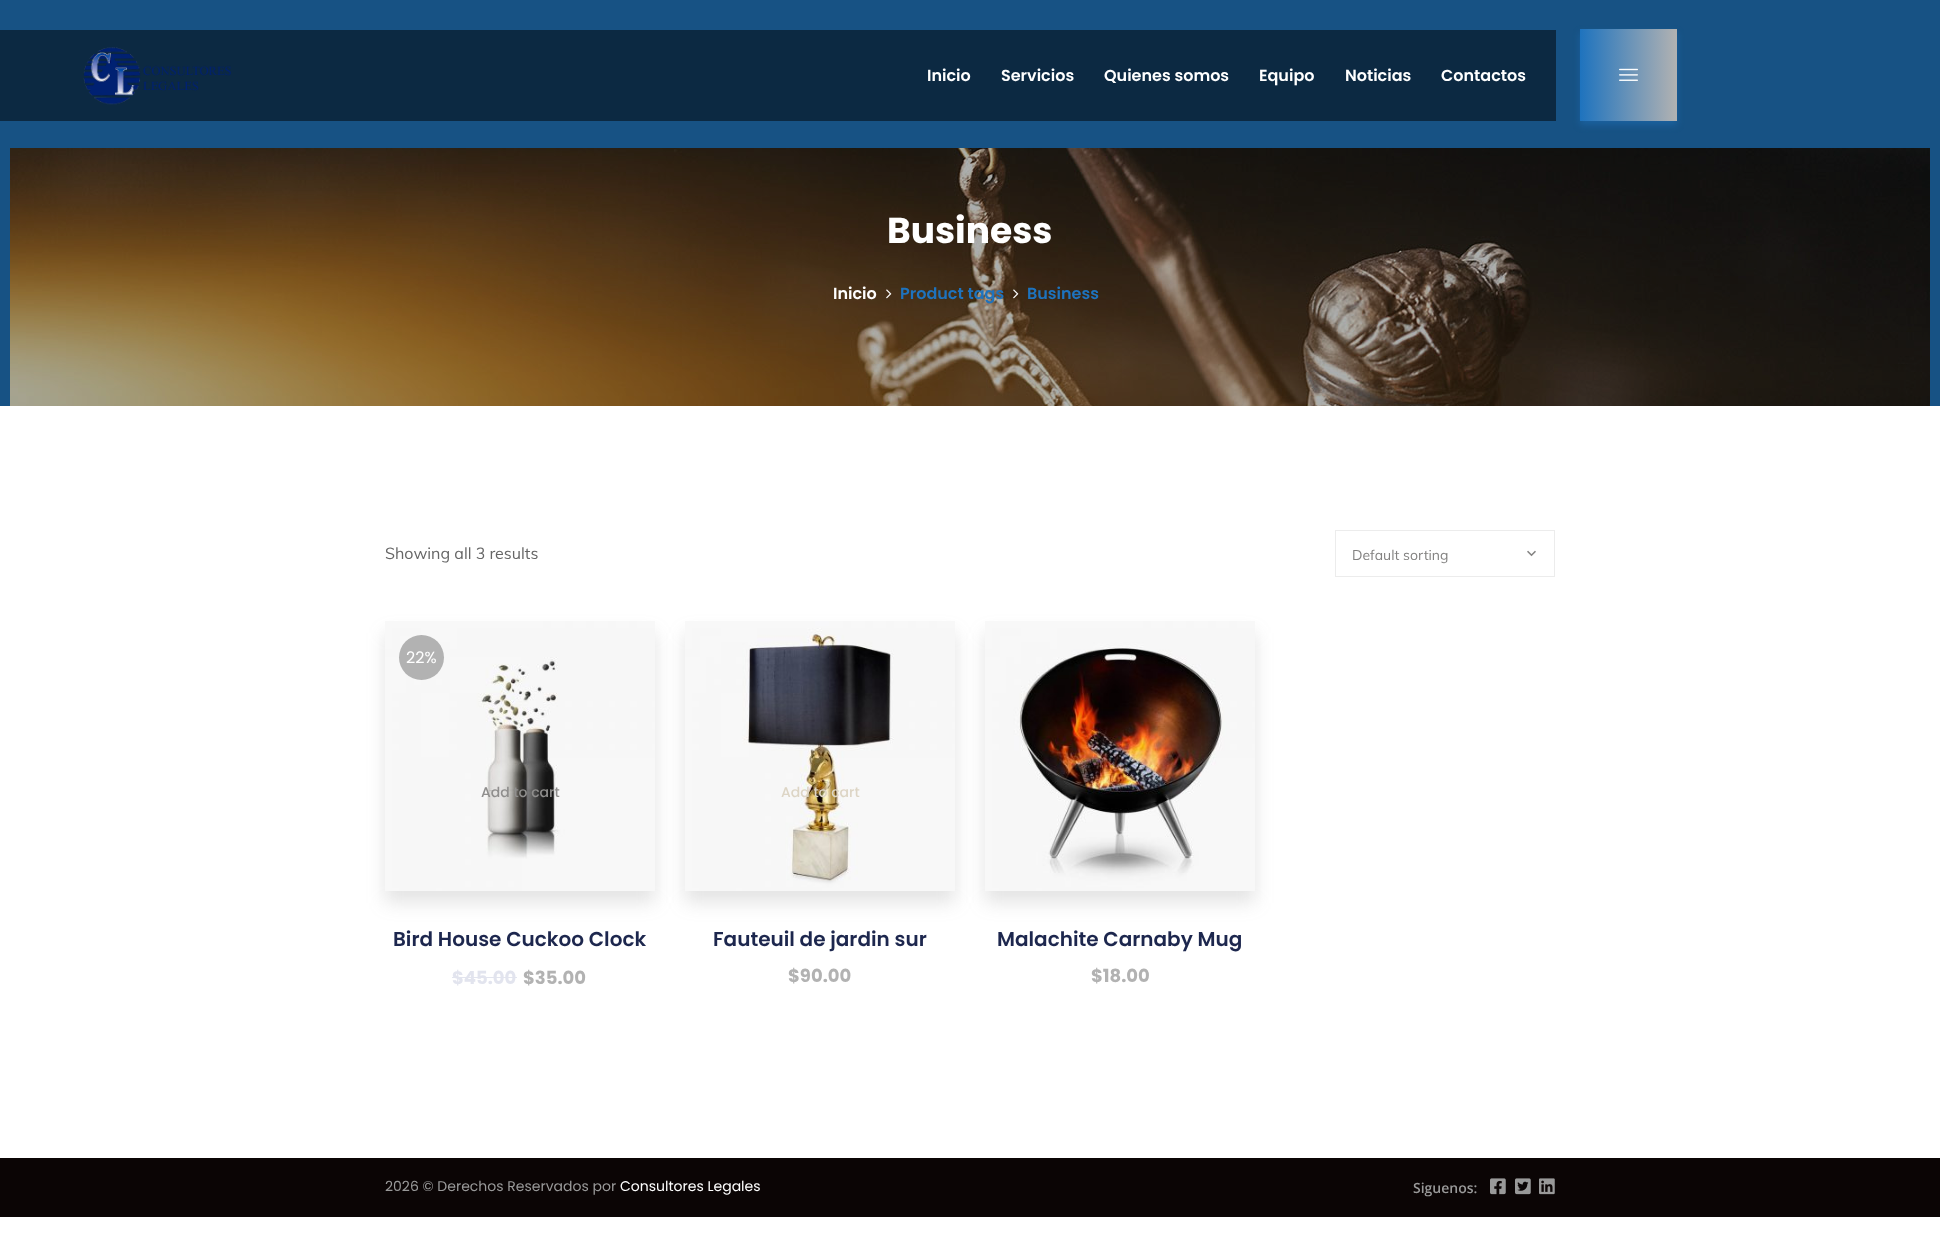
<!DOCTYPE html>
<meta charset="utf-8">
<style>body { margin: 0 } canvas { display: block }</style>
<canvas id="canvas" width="1940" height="1255"></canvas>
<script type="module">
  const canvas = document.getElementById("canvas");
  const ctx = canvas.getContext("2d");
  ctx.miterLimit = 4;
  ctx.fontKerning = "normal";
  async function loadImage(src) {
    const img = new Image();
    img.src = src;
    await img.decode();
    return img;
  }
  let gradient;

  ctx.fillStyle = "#ffffff";
  ctx.fillRect(0, 0, 1940, 1255);
  ctx.fillStyle = "#175284";
  ctx.fillRect(0, 0, 1940, 406);
  ctx.fillStyle = "#0c2942";
  ctx.fillRect(0, 30, 1556, 91);
  ctx.drawImage(await loadImage("img1.png"), 83, 47, 148, 58);
  ctx.font = "600 16px Poppins";
  ctx.fillStyle = "#ffffff";
  ctx.fillText("Inicio", 927, 81);
  ctx.fillText("Servicios", 1001, 81);
  ctx.fillText("Quienes somos", 1104, 81);
  ctx.fillText("Equipo", 1259, 81);
  ctx.fillText("Noticias", 1345, 81);
  ctx.fillText("Contactos", 1441, 81);
  gradient = ctx.createLinearGradient(1580, 75, 1677, 75);
  gradient.addColorStop(0, "#1e73be");
  gradient.addColorStop(1, "#b2b2b2");
  ctx.fillStyle = gradient;
  ctx.fillRect(1580, 29, 97, 92);
  ctx.save();
  ctx.beginPath();
  ctx.moveTo(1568, 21);
  ctx.lineTo(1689, 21);
  ctx.lineTo(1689, 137);
  ctx.lineTo(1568, 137);
  ctx.closePath();
  ctx.moveTo(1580, 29);
  ctx.lineTo(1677, 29);
  ctx.lineTo(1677, 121);
  ctx.lineTo(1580, 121);
  ctx.closePath();
  ctx.clip("evenodd");
  ctx.fillStyle = "rgba(30, 115, 190, 0.47)";
  ctx.filter = "blur(3.5px)";
  ctx.beginPath();
  ctx.rect(1580, 33, 97, 92);
  ctx.fill();
  ctx.filter = "none";
  ctx.restore();
  ctx.drawImage(await loadImage("img2.png"), 1619, 68, 19, 13);
  ctx.drawImage(await loadImage("img3.png"), 10, 148, 1920, 258);
  ctx.font = "bold 36px Poppins";
  ctx.fillStyle = "#ffffff";
  ctx.fillText("Business", 887, 243);
  ctx.font = "600 16px Poppins";
  ctx.fillText("Inicio", 833, 299);
  ctx.drawImage(await loadImage("img4.png"), 886, 289, 6, 10);
  ctx.fillStyle = "#1e73be";
  ctx.fillText("Product tags", 900, 299);
  ctx.drawImage(await loadImage("img5.png"), 1013, 289, 6, 10);
  ctx.fillText("Business", 1027, 299);
  ctx.font = "16px Muli";
  ctx.fillStyle = "#666666";
  ctx.fillText("Showing all 3 results", 385, 559);
  ctx.strokeStyle = "#ececec";
  ctx.strokeRect(1335.5, 530.5, 219, 46);
  ctx.font = "14px Muli";
  ctx.fillStyle = "#838281";
  ctx.fillText("Default sorting", 1352, 560);
  ctx.drawImage(await loadImage("img6.png"), 1527, 550, 9, 7);
  ctx.fillStyle = "rgba(120, 120, 120, 0.2)";
  ctx.filter = "blur(9px)";
  ctx.beginPath();
  ctx.rect(385, 633, 270, 270);
  ctx.fill();
  ctx.filter = "none";
  ctx.drawImage(await loadImage("img7.png"), 385, 621, 270, 270);
  ctx.fillStyle = "#b2b2b2";
  ctx.beginPath();
  ctx.arc(421.5, 657.5, 22.5, 0, Math.PI * 2);
  ctx.fill();
  ctx.font = "16px Poppins";
  ctx.fillStyle = "#ffffff";
  ctx.fillText("22%", 406, 663);
  ctx.font = "500 14px Poppins";
  ctx.fillStyle = "#8f8e8d";
  ctx.fillText("Add to cart", 481, 797);
  ctx.font = "600 20px Poppins";
  ctx.fillStyle = "#1d274e";
  ctx.fillText("Bird House Cuckoo Clock", 393, 946);
  ctx.font = "bold 18px Poppins";
  ctx.fillStyle = "#e2e4ee";
  ctx.fillText("$45.00", 452, 984);
  ctx.fillRect(452, 977, 65, 1);
  ctx.fillStyle = "#b2b2b2";
  ctx.fillText("$35.00", 523, 984);
  ctx.fillStyle = "rgba(120, 120, 120, 0.2)";
  ctx.filter = "blur(9px)";
  ctx.beginPath();
  ctx.rect(685, 633, 270, 270);
  ctx.fill();
  ctx.filter = "none";
  ctx.drawImage(await loadImage("img8.png"), 685, 621, 270, 270);
  ctx.font = "500 14px Poppins";
  ctx.fillStyle = "#ddd5c5";
  ctx.fillText("Add to cart", 781, 797);
  ctx.font = "600 20px Poppins";
  ctx.fillStyle = "#1d274e";
  ctx.fillText("Fauteuil de jardin sur", 713, 946);
  ctx.font = "bold 18px Poppins";
  ctx.fillStyle = "#b2b2b2";
  ctx.fillText("$90.00", 788, 982);
  ctx.fillStyle = "rgba(120, 120, 120, 0.2)";
  ctx.filter = "blur(9px)";
  ctx.beginPath();
  ctx.rect(985, 633, 270, 270);
  ctx.fill();
  ctx.filter = "none";
  ctx.drawImage(await loadImage("img9.png"), 985, 621, 270, 270);
  ctx.font = "600 20px Poppins";
  ctx.fillStyle = "#1d274e";
  ctx.fillText("Malachite Carnaby Mug", 997, 946);
  ctx.font = "bold 18px Poppins";
  ctx.fillStyle = "#b2b2b2";
  ctx.fillText("$18.00", 1091, 982);
  ctx.fillStyle = "#0b0505";
  ctx.fillRect(0, 1158, 1940, 59);
  ctx.font = "14px Poppins";
  ctx.fillStyle = "#999999";
  ctx.fillText("2026 © Derechos Reservados por", 385, 1191);
  ctx.fillStyle = "#ffffff";
  ctx.fillText("Consultores Legales", 620, 1191);
  ctx.font = "600 14px Open Sans";
  ctx.fillStyle = "#999999";
  ctx.fillText("Siguenos:", 1413, 1193);
  ctx.drawImage(await loadImage("img10.png"), 1490, 1178, 16, 17);
  ctx.drawImage(await loadImage("img11.png"), 1515, 1178, 16, 17);
  ctx.drawImage(await loadImage("img12.png"), 1539, 1178, 16, 17);
</script>
